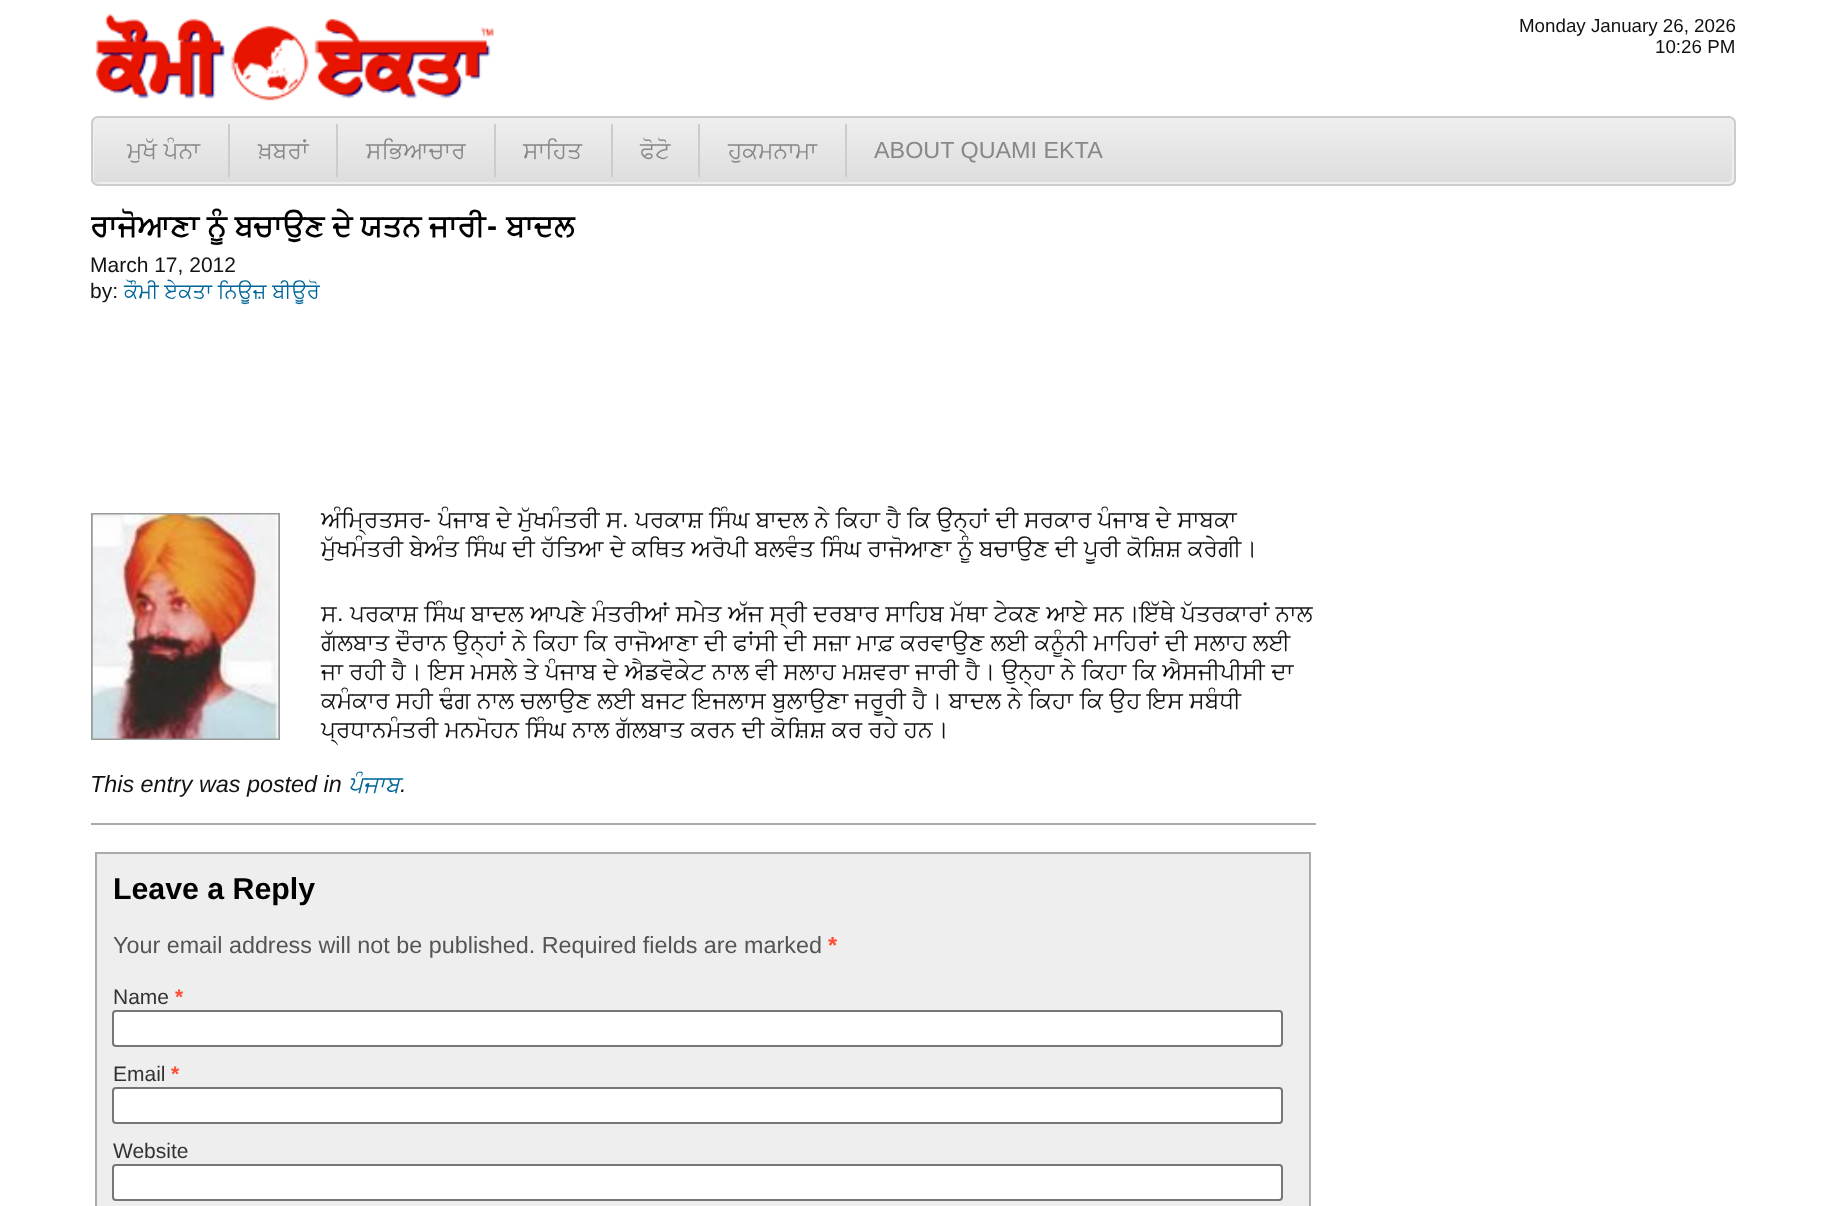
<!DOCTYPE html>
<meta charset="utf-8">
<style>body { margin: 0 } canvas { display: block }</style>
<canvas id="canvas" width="1825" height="1206"></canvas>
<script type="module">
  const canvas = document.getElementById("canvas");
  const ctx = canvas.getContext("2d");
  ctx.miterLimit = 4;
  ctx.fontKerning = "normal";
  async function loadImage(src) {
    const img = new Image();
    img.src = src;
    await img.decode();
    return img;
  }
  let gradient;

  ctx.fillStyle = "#ffffff";
  ctx.fillRect(0, 0, 1825, 1206);
  ctx.drawImage(await loadImage("img1.png"), 95, 14, 399, 87);
  ctx.font = "18.75px Liberation Sans";
  ctx.fillStyle = "#121212";
  ctx.fillText("Monday January 26, 2026", 1519, 32);
  ctx.fillText("10:26 PM", 1655, 53);
  ctx.save();
  ctx.beginPath();
  ctx.roundRect(91, 116, 1645, 70, 7);
  ctx.clip();
  gradient = ctx.createLinearGradient(914, 117, 914, 184);
  gradient.addColorStop(0, "#efefef");
  gradient.addColorStop(1, "#dddddd");
  ctx.fillStyle = gradient;
  ctx.fillRect(91, 117, 1645, 67);
  ctx.restore();
  ctx.fillStyle = "#eeeeee";
  ctx.beginPath();
  ctx.moveTo(94, 182);
  ctx.bezierCurveTo(95, 183, 96, 184, 98, 184);
  ctx.lineTo(1729, 184);
  ctx.bezierCurveTo(1732, 184, 1734, 182, 1734, 179);
  ctx.lineTo(1734, 122);
  ctx.bezierCurveTo(1734, 120, 1733, 118, 1730, 117);
  ctx.bezierCurveTo(1731, 118, 1732, 119, 1732, 121);
  ctx.lineTo(1732, 177);
  ctx.bezierCurveTo(1732, 180, 1730, 182, 1727, 182);
  ctx.lineTo(96, 182);
  ctx.closePath();
  ctx.fill();
  ctx.beginPath();
  ctx.moveTo(100, 119);
  ctx.lineTo(1731, 119);
  ctx.lineTo(1733, 119);
  ctx.bezierCurveTo(1732, 118, 1731, 117, 1729, 117);
  ctx.lineTo(98, 117);
  ctx.bezierCurveTo(95, 117, 93, 119, 93, 122);
  ctx.lineTo(93, 179);
  ctx.bezierCurveTo(93, 181, 94, 182, 95, 183);
  ctx.lineTo(94, 180);
  ctx.lineTo(94, 124);
  ctx.bezierCurveTo(94, 121, 97, 119, 100, 119);
  ctx.closePath();
  ctx.fill();
  ctx.beginPath();
  ctx.roundRect(92, 117, 1643, 68, 6);
  ctx.strokeStyle = "#cccccc";
  ctx.lineWidth = 2;
  ctx.stroke();
  ctx.fillStyle = "#cccccc";
  ctx.fillRect(228, 124, 2, 53);
  ctx.wordSpacing = "0.6px";
  ctx.font = "23.35px FreeSans";
  ctx.fillStyle = "#888888";
  ctx.fillText("ਮੁਖੱ ਪੰਨਾ", 127, 158);
  ctx.fillStyle = "#cccccc";
  ctx.fillRect(336, 124, 2, 53);
  ctx.wordSpacing = "0px";
  ctx.fillStyle = "#888888";
  ctx.fillText("ਖ਼ਬਰਾਂ", 258, 158);
  ctx.fillStyle = "#cccccc";
  ctx.fillRect(494, 124, 2, 53);
  ctx.fillStyle = "#888888";
  ctx.fillText("ਸਭਿਆਚਾਰ", 366, 158);
  ctx.fillStyle = "#cccccc";
  ctx.fillRect(611, 124, 2, 53);
  ctx.fillStyle = "#888888";
  ctx.fillText("ਸਾਹਿਤ", 523, 158);
  ctx.fillStyle = "#cccccc";
  ctx.fillRect(698, 124, 2, 53);
  ctx.fillStyle = "#888888";
  ctx.fillText("ਫੋਟੋ", 640, 158);
  ctx.fillStyle = "#cccccc";
  ctx.fillRect(845, 124, 2, 53);
  ctx.fillStyle = "#888888";
  ctx.fillText("ਹੁਕਮਨਾਮਾ", 728, 158);
  ctx.font = "23.35px Liberation Sans";
  ctx.fillText("ABOUT QUAMI EKTA", 874, 158);
  ctx.save();
  ctx.beginPath();
  ctx.rect(91, 200, 1225, 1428);
  ctx.clip();
  ctx.wordSpacing = "0.5px";
  ctx.font = "bold 30.3px FreeSans";
  ctx.fillStyle = "#000000";
  ctx.fillText("ਰਾਜੋਆਣਾ ਨੂੰ ਬਚਾਉਣ ਦੇ ਯਤਨ ਜਾਰੀ", 90, 236);
  ctx.restore();
  ctx.font = "bold 30.3px Liberation Sans";
  ctx.fillStyle = "#000000";
  ctx.fillText("-", 487, 236);
  ctx.font = "bold 30.3px FreeSans";
  ctx.fillText("ਬਾਦਲ", 506, 236);
  ctx.font = "21px Liberation Sans";
  ctx.fillStyle = "#121212";
  ctx.fillText("March 17, 2012", 90, 272);
  ctx.fillText("by:", 90, 298);
  ctx.wordSpacing = "0.5px";
  ctx.font = "21px FreeSans";
  ctx.fillStyle = "#006699";
  ctx.fillText("ਕੌਮੀ ਏਕਤਾ ਨਿਊਜ਼ ਬੀਊਰੋ", 124, 298);
  ctx.strokeStyle = "#999999";
  ctx.strokeRect(92, 514, 187, 225);
  ctx.drawImage(await loadImage("img2.png"), 92, 514, 187, 225);
  ctx.wordSpacing = "0px";
  ctx.font = "23.35px FreeSans";
  ctx.fillStyle = "#121212";
  ctx.fillText("ਅੰਮ੍ਰਿਤਸਰ", 321, 527);
  ctx.font = "23.35px Liberation Sans";
  ctx.fillText("-", 423, 527);
  ctx.wordSpacing = "0.5px";
  ctx.font = "23.35px FreeSans";
  ctx.fillText("ਪੰਜਾਬ ਦੇ ਮੁੱਖਮੰਤਰੀ ਸ", 438, 527);
  ctx.fillText("ਪਰਕਾਸ਼ ਸਿੰਘ ਬਾਦਲ ਨੇ ਕਿਹਾ ਹੈ ਕਿ ਉਨ੍ਹਾਂ ਦੀ ਸਰਕਾਰ ਪੰਜਾਬ ਦੇ ਸਾਬਕਾ", 635, 527);
  ctx.wordSpacing = "0px";
  ctx.font = "23.35px Liberation Sans";
  ctx.fillText(".", 622, 527);
  ctx.wordSpacing = "0.6px";
  ctx.font = "23.35px FreeSans";
  ctx.fillText("ਮੁੱਖਮੰਤਰੀ ਬੇਅੰਤ ਸਿੰਘ ਦੀ ਹੱਤਿਆ ਦੇ ਕਥਿਤ ਅਰੋਪੀ ਬਲਵੰਤ ਸਿੰਘ ਰਾਜੋਆਣਾ ਨੂੰ ਬਚਾਉਣ ਦੀ ਪੂਰੀ ਕੋਸ਼ਿਸ਼ ਕਰੇਗੀ।", 321, 556);
  ctx.wordSpacing = "0px";
  ctx.fillText("ਸ", 321, 621);
  ctx.font = "23.35px Liberation Sans";
  ctx.fillText(".", 337, 621);
  ctx.wordSpacing = "0.6px";
  ctx.font = "23.35px FreeSans";
  ctx.fillText("ਪਰਕਾਸ਼ ਸਿੰਘ ਬਾਦਲ ਆਪਣੇ ਮੰਤਰੀਆਂ ਸਮੇਤ ਅੱਜ ਸ੍ਰੀ ਦਰਬਾਰ ਸਾਹਿਬ ਮੱਥਾ ਟੇਕਣ ਆਏ ਸਨ।ਇੱਥੇ ਪੱਤਰਕਾਰਾਂ ਨਾਲ", 350, 621);
  ctx.fillText("ਗੱਲਬਾਤ ਦੌਰਾਨ ਉਨ੍ਹਾਂ ਨੇ ਕਿਹਾ ਕਿ ਰਾਜੋਆਣਾ ਦੀ ਫਾਂਸੀ ਦੀ ਸਜ਼ਾ ਮਾਫ਼ ਕਰਵਾਉਣ ਲਈ ਕਨੂੰਨੀ ਮਾਹਿਰਾਂ ਦੀ ਸਲਾਹ ਲਈ", 321, 650);
  ctx.fillText("ਜਾ ਰਹੀ ਹੈ। ਇਸ ਮਸਲੇ ਤੇ ਪੰਜਾਬ ਦੇ ਐਡਵੋਕੇਟ ਨਾਲ ਵੀ ਸਲਾਹ ਮਸ਼ਵਰਾ ਜਾਰੀ ਹੈ। ਉਨ੍ਹਾ ਨੇ ਕਿਹਾ ਕਿ ਐਸਜੀਪੀਸੀ ਦਾ", 321, 679);
  ctx.fillText("ਕਮੰਕਾਰ ਸਹੀ ਢੰਗ ਨਾਲ ਚਲਾਉਣ ਲਈ ਬਜਟ ਇਜਲਾਸ ਬੁਲਾਉਣਾ ਜਰੂਰੀ ਹੈ। ਬਾਦਲ ਨੇ ਕਿਹਾ ਕਿ ਉਹ ਇਸ ਸਬੰਧੀ", 321, 708);
  ctx.fillText("ਪ੍ਰਧਾਨਮੰਤਰੀ ਮਨਮੋਹਨ ਸਿੰਘ ਨਾਲ ਗੱਲਬਾਤ ਕਰਨ ਦੀ ਕੋਸ਼ਿਸ਼ ਕਰ ਰਹੇ ਹਨ।", 321, 737);
  ctx.wordSpacing = "0px";
  ctx.font = "italic 23.35px Liberation Sans";
  ctx.fillText("This entry was posted in", 90, 792);
  ctx.font = "italic 23.35px FreeSans";
  ctx.fillStyle = "#006699";
  ctx.fillText("ਪੰਜਾਬ", 348, 792);
  ctx.font = "italic 23.35px Liberation Sans";
  ctx.fillStyle = "#121212";
  ctx.fillText(".", 400, 792);
  ctx.fillStyle = "#ababab";
  ctx.fillRect(91, 823, 1225, 2);
  ctx.fillStyle = "#eeeeee";
  ctx.beginPath();
  ctx.rect(96, 853, 1214, 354);
  ctx.fill();
  ctx.strokeStyle = "#ababab";
  ctx.stroke();
  ctx.font = "bold 30.3px Liberation Sans";
  ctx.fillStyle = "#000000";
  ctx.fillText("Leave a Reply", 113, 899);
  ctx.font = "23.35px Liberation Sans";
  ctx.fillStyle = "#545454";
  ctx.fillText("Your email address will not be published. Required fields are marked", 113, 953);
  ctx.font = "bold 23.35px Liberation Sans";
  ctx.fillStyle = "#ff4b33";
  ctx.fillText("*", 828, 953);
  ctx.font = "21px Liberation Sans";
  ctx.fillStyle = "#333333";
  ctx.fillText("Name", 113, 1004);
  ctx.font = "bold 21px Liberation Sans";
  ctx.fillStyle = "#ff4b33";
  ctx.fillText("*", 175, 1004);
  ctx.fillStyle = "#ffffff";
  ctx.beginPath();
  ctx.roundRect(113, 1011, 1169, 35, 3);
  ctx.fill();
  ctx.strokeStyle = "#767676";
  ctx.stroke();
  ctx.font = "21px Liberation Sans";
  ctx.fillStyle = "#333333";
  ctx.fillText("Email", 113, 1081);
  ctx.font = "bold 21px Liberation Sans";
  ctx.fillStyle = "#ff4b33";
  ctx.fillText("*", 171, 1081);
  ctx.fillStyle = "#ffffff";
  ctx.beginPath();
  ctx.roundRect(113, 1088, 1169, 35, 3);
  ctx.fill();
  ctx.stroke();
  ctx.font = "21px Liberation Sans";
  ctx.fillStyle = "#333333";
  ctx.fillText("Website", 113, 1158);
  ctx.fillStyle = "#ffffff";
  ctx.beginPath();
  ctx.roundRect(113, 1165, 1169, 35, 3);
  ctx.fill();
  ctx.stroke();
</script>
